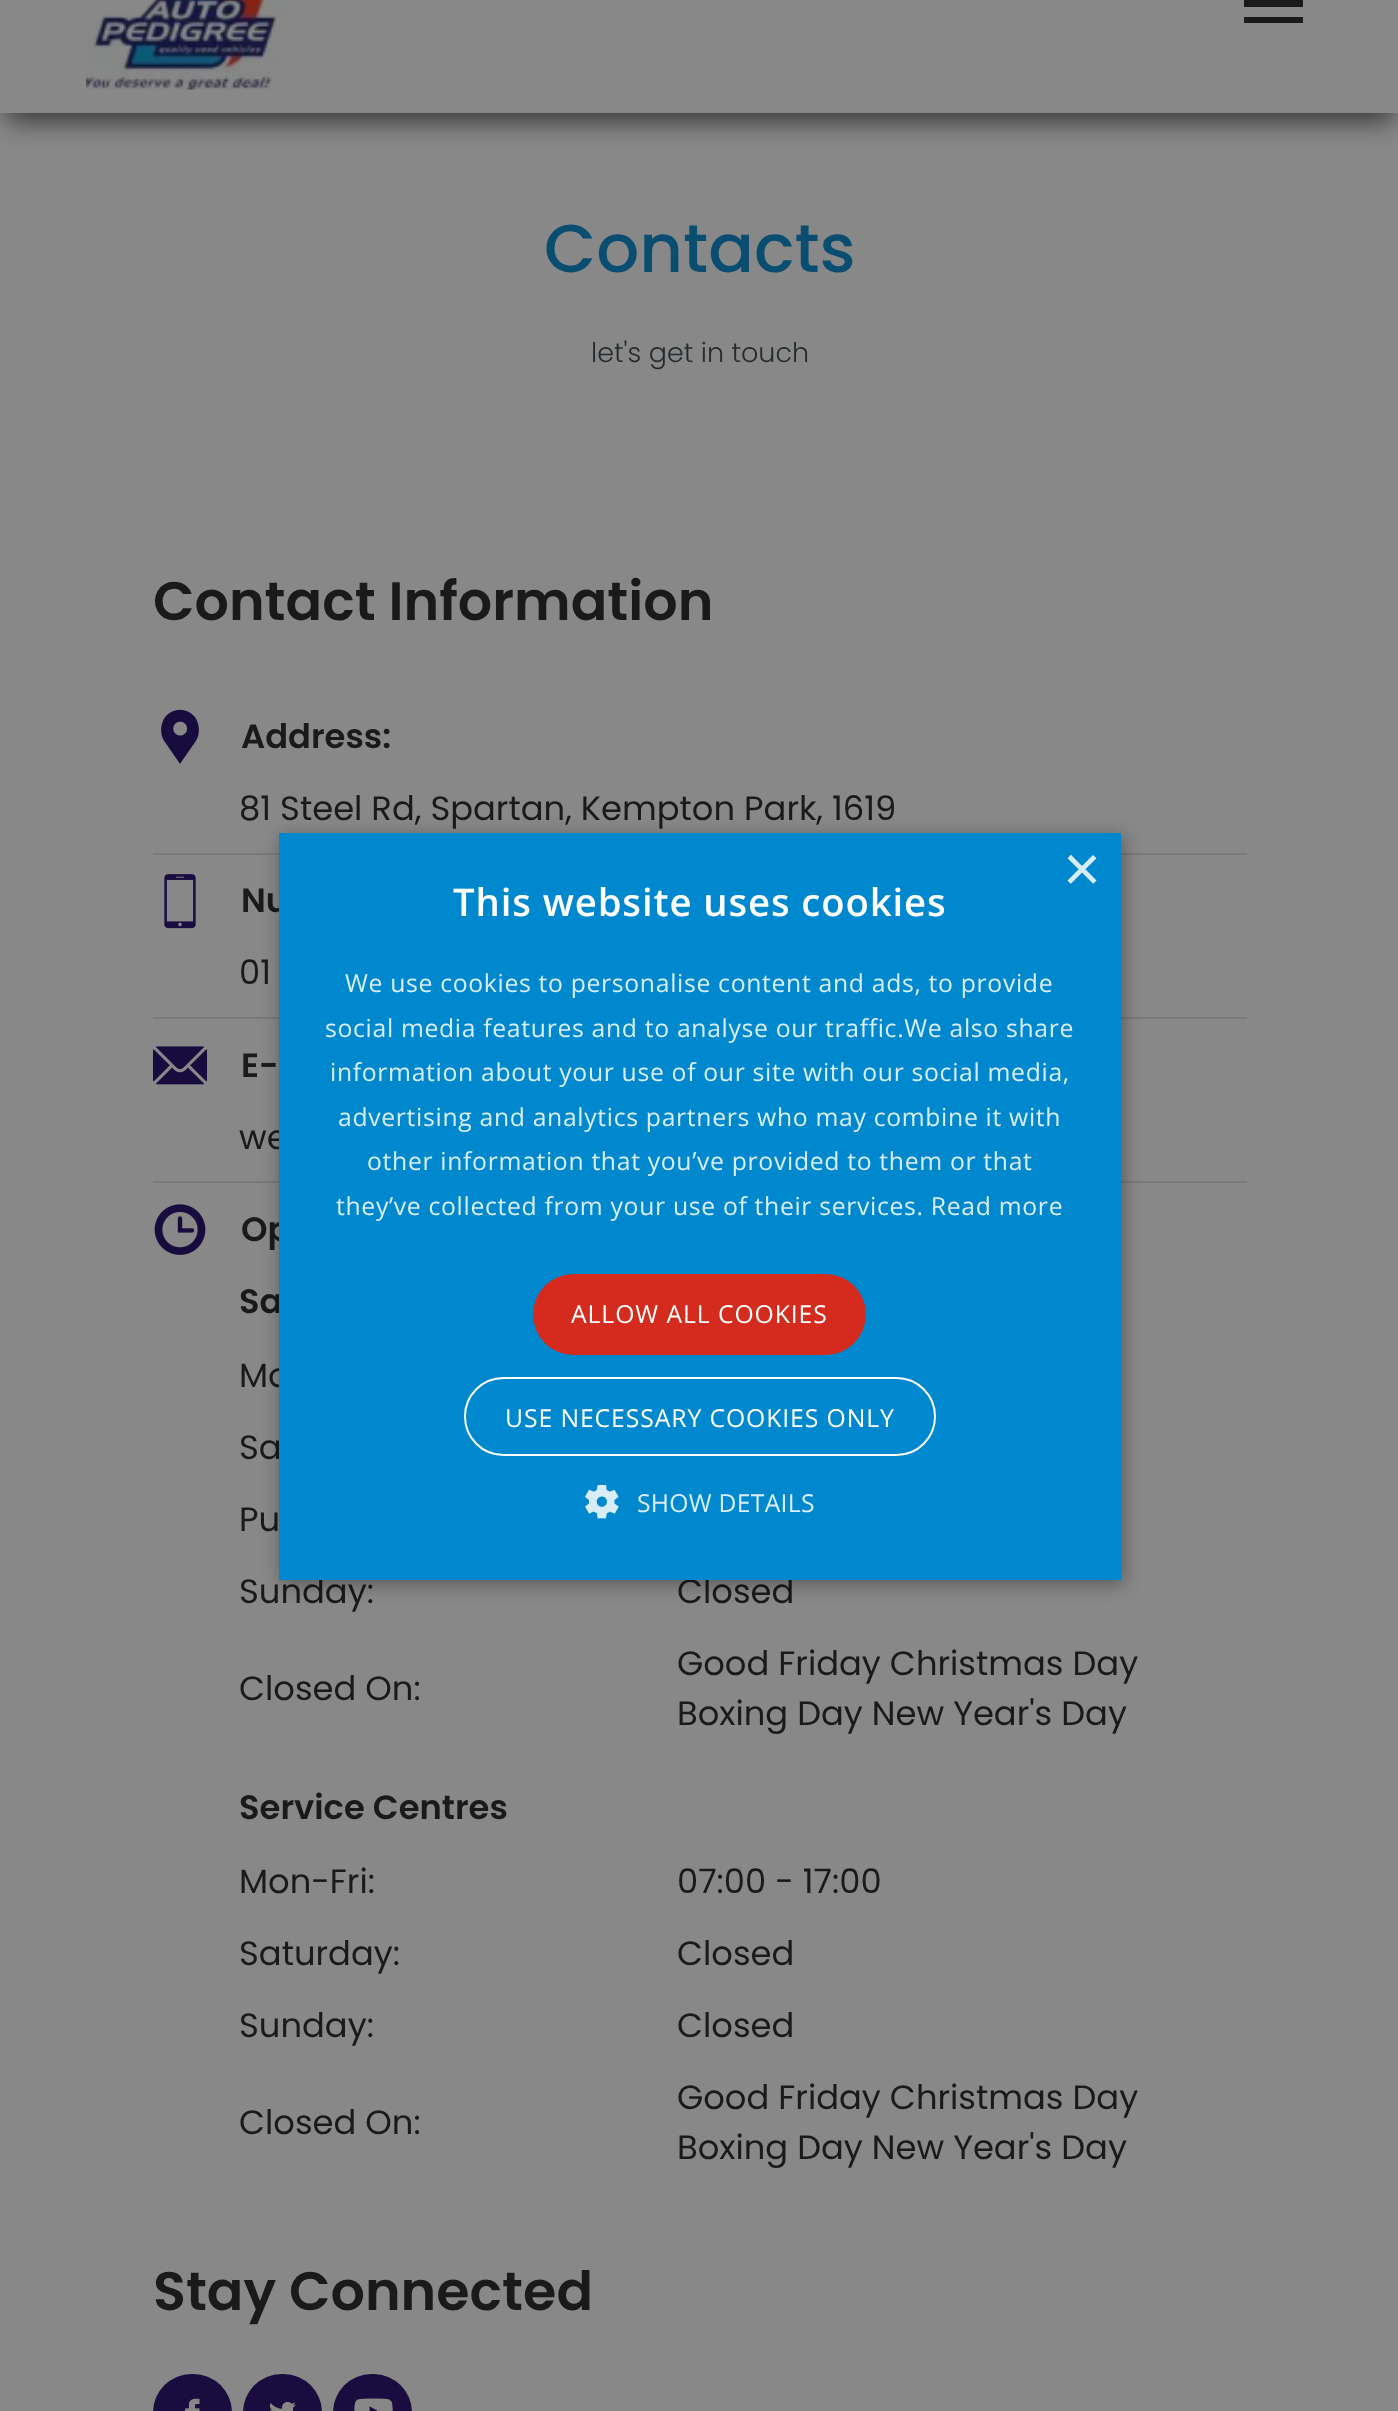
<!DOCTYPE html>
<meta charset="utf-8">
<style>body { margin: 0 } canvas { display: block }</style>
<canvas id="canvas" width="1398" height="2411"></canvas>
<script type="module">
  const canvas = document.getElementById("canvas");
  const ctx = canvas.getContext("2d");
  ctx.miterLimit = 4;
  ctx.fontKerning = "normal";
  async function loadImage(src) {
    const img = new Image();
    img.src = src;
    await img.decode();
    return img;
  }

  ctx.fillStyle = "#888888";
  ctx.fillRect(0, 0, 1398, 2411);
  ctx.fillStyle = "rgba(9, 9, 9, 0.6)";
  ctx.filter = "blur(12.5px)";
  ctx.beginPath();
  ctx.rect(7, -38, 1386, 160);
  ctx.fill();
  ctx.filter = "none";
  ctx.fillStyle = "#888888";
  ctx.fillRect(0, 0, 1398, 113);
  ctx.drawImage(await loadImage("img1.png"), 86, 0, 203, 90);
  ctx.fillStyle = "#1a1a1a";
  ctx.beginPath();
  ctx.moveTo(1244, 17);
  ctx.lineTo(1303, 17);
  ctx.lineTo(1303, 23);
  ctx.lineTo(1244, 23);
  ctx.closePath();
  ctx.moveTo(1244, 0);
  ctx.lineTo(1303, 0);
  ctx.lineTo(1303, 7);
  ctx.lineTo(1244, 7);
  ctx.closePath();
  ctx.moveTo(1244, -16);
  ctx.lineTo(1303, -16);
  ctx.lineTo(1303, -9);
  ctx.lineTo(1244, -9);
  ctx.closePath();
  ctx.fill();
  ctx.font = "500 67.5px Poppins";
  ctx.fillStyle = "#094d70";
  ctx.fillText("Contacts", 544, 272);
  ctx.font = "300 27px Poppins";
  ctx.fillStyle = "#242a2e";
  ctx.fillText("let's get in touch", 591, 362);
  ctx.font = "600 54px Poppins";
  ctx.fillStyle = "#1a1a1a";
  ctx.fillText("Contact Information", 153, 620);
  ctx.fillStyle = "#7a7a7b";
  ctx.fillRect(153, 853, 1094, 2);
  ctx.drawImage(await loadImage("img2.png"), 161, 709, 38, 55);
  ctx.font = "600 33.75px Poppins";
  ctx.fillStyle = "#1a1a1a";
  ctx.fillText("Address:", 241, 748);
  ctx.font = "33.75px Poppins";
  ctx.fillText("81 Steel Rd, Spartan, Kempton Park, 1619", 239, 820);
  ctx.fillStyle = "#7a7a7b";
  ctx.fillRect(153, 1017, 1094, 2);
  ctx.drawImage(await loadImage("img3.png"), 164, 874, 32, 55);
  ctx.font = "600 33.75px Poppins";
  ctx.fillStyle = "#1a1a1a";
  ctx.fillText("Nu", 241, 912);
  ctx.font = "33.75px Poppins";
  ctx.fillText("01", 239, 984);
  ctx.fillStyle = "#7a7a7b";
  ctx.fillRect(153, 1181, 1094, 2);
  ctx.drawImage(await loadImage("img4.png"), 153, 1046, 54, 39);
  ctx.font = "600 33.75px Poppins";
  ctx.fillStyle = "#1a1a1a";
  ctx.fillText("E-", 241, 1077);
  ctx.font = "33.75px Poppins";
  ctx.fillText("we", 239, 1149);
  ctx.drawImage(await loadImage("img5.png"), 154, 1204, 52, 51);
  ctx.font = "600 33.75px Poppins";
  ctx.fillText("Op", 241, 1241);
  ctx.fillText("Sa", 239, 1313);
  ctx.font = "33.75px Poppins";
  ctx.fillText("Mo", 239, 1387);
  ctx.fillText("Sa", 239, 1459);
  ctx.fillText("Pu", 239, 1531);
  ctx.fillText("Sunday:", 239, 1603);
  ctx.fillText("Closed", 677, 1603);
  ctx.fillText("Closed On:", 239, 1700);
  ctx.fillText("Good Friday Christmas Day", 677, 1675);
  ctx.fillText("Boxing Day New Year's Day", 677, 1725);
  ctx.font = "600 33.75px Poppins";
  ctx.fillText("Service Centres", 239, 1819);
  ctx.font = "33.75px Poppins";
  ctx.fillText("Mon-Fri:", 239, 1893);
  ctx.fillText("07:00 - 17:00", 677, 1893);
  ctx.fillText("Saturday:", 239, 1965);
  ctx.fillText("Closed", 677, 1965);
  ctx.fillText("Sunday:", 239, 2037);
  ctx.fillText("Closed", 677, 2037);
  ctx.fillText("Closed On:", 239, 2134);
  ctx.fillText("Good Friday Christmas Day", 677, 2109);
  ctx.fillText("Boxing Day New Year's Day", 677, 2159);
  ctx.font = "600 54px Poppins";
  ctx.fillText("Stay Connected", 153, 2310);
  ctx.fillStyle = "#190c3e";
  ctx.beginPath();
  ctx.roundRect(153, 2374, 79, 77, 39.5);
  ctx.fill();
  ctx.drawImage(await loadImage("img6.png"), 185, 2398, 15, 13);
  ctx.beginPath();
  ctx.roundRect(243, 2374, 79, 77, 39.5);
  ctx.fill();
  ctx.drawImage(await loadImage("img7.png"), 269, 2401, 27, 10);
  ctx.beginPath();
  ctx.roundRect(333, 2374, 79, 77, 39.5);
  ctx.fill();
  ctx.drawImage(await loadImage("img8.png"), 354, 2398, 39, 13);
  ctx.fillStyle = "rgba(0, 0, 0, 0.35)";
  ctx.filter = "blur(9px)";
  ctx.beginPath();
  ctx.rect(281, 837, 842, 747);
  ctx.fill();
  ctx.filter = "none";
  ctx.fillStyle = "#0088ce";
  ctx.fillRect(279, 833, 842, 747);
  ctx.font = "65px Liberation Sans";
  ctx.fillStyle = "#d9edf8";
  ctx.fillText("×", 1063, 891);
  ctx.letterSpacing = "0.9px";
  ctx.font = "600 38.25px Open Sans";
  ctx.fillStyle = "#ffffff";
  ctx.fillText("This website uses cookies", 453, 916);
  ctx.letterSpacing = "0.67px";
  ctx.font = "24.75px Open Sans";
  ctx.fillStyle = "#d9edf8";
  ctx.fillText("We use cookies to personalise content and ads, to provide", 345, 992);
  ctx.fillText("social media features and to analyse our traffic.We also share", 325, 1037);
  ctx.fillText("information about your use of our site with our social media,", 330, 1081);
  ctx.fillText("advertising and analytics partners who may combine it with", 338, 1126);
  ctx.fillText("other information that you’ve provided to them or that", 367, 1170);
  ctx.fillText("they’ve collected from your use of their services. Read more", 336, 1215);
  ctx.fillStyle = "#d52b1e";
  ctx.beginPath();
  ctx.roundRect(533, 1274, 333, 81, 40.5);
  ctx.fill();
  ctx.letterSpacing = "0.9px";
  ctx.fillStyle = "#ffffff";
  ctx.fillText("ALLOW ALL COOKIES", 571, 1323);
  ctx.beginPath();
  ctx.roundRect(465, 1378, 470, 77, 38.5);
  ctx.strokeStyle = "#ffffff";
  ctx.lineWidth = 2;
  ctx.stroke();
  ctx.fillText("USE NECESSARY COOKIES ONLY", 505, 1427);
  ctx.drawImage(await loadImage("img9.png"), 585, 1485, 34, 34);
  ctx.letterSpacing = "0.25px";
  ctx.fillStyle = "#d9edf8";
  ctx.fillText("SHOW DETAILS", 637, 1512);
</script>
